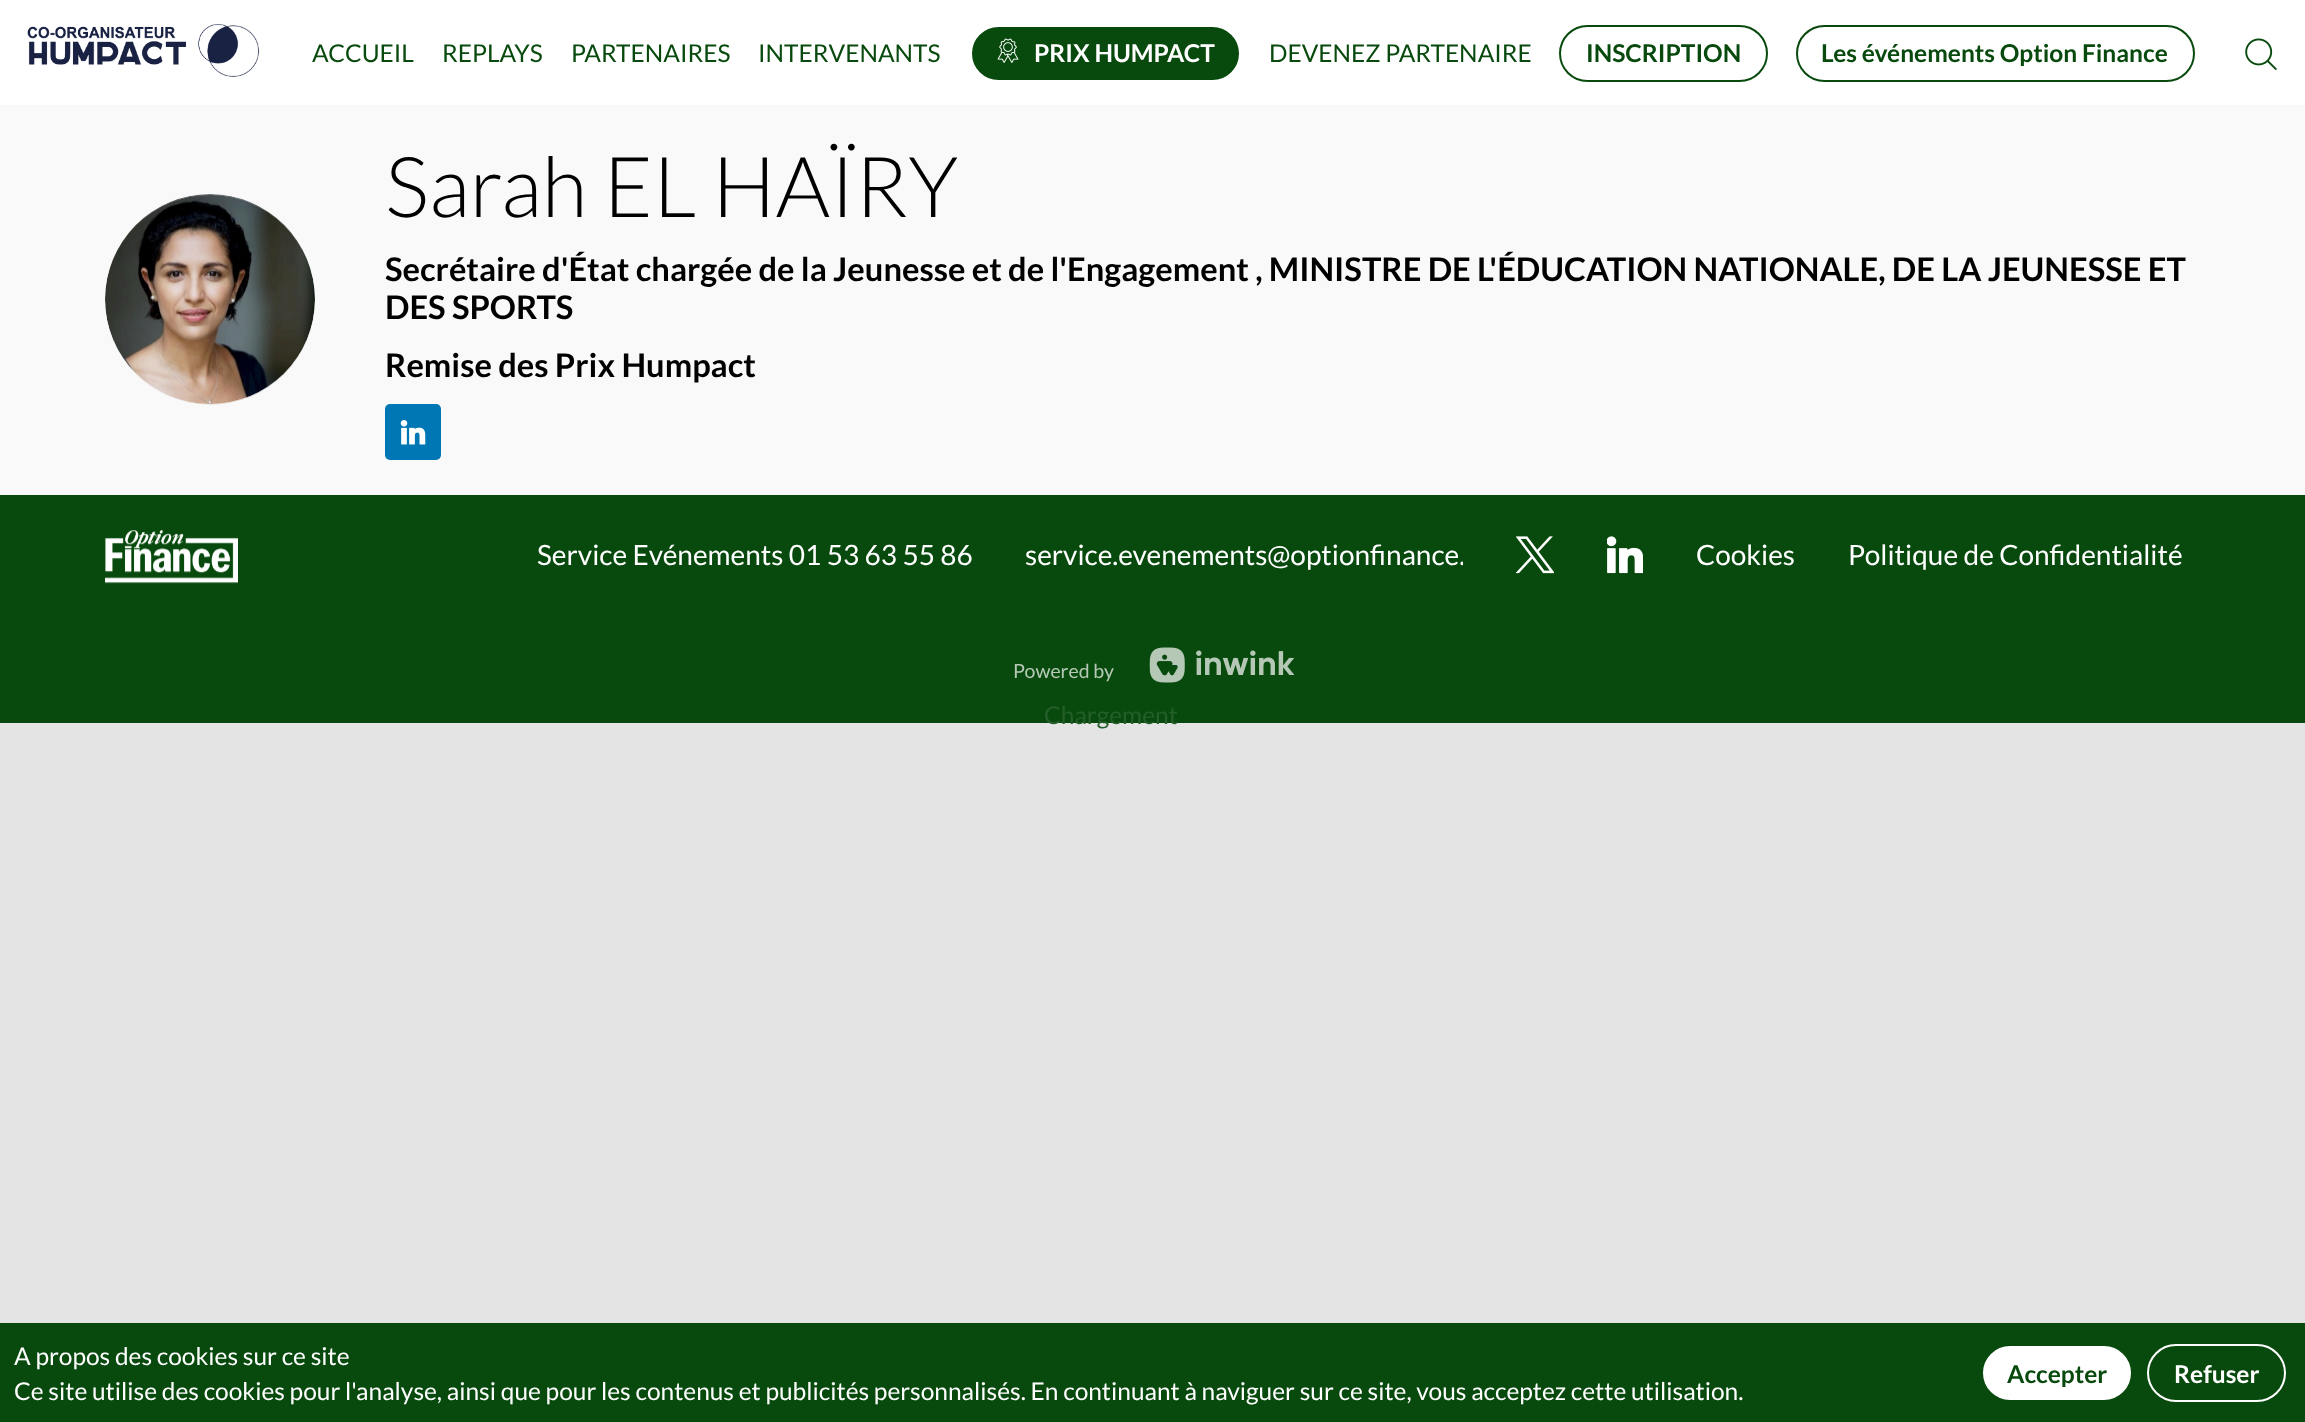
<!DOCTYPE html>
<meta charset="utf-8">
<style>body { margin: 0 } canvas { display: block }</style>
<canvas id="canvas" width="2305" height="1422"></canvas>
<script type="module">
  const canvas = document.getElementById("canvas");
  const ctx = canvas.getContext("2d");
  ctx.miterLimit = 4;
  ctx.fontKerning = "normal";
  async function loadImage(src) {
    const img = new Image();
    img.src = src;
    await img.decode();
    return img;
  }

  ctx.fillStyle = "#e4e4e4";
  ctx.fillRect(0, 0, 2305, 1422);
  ctx.fillStyle = "#ffffff";
  ctx.fillRect(0, 0, 2305, 105);
  ctx.drawImage(await loadImage("img1.png"), 27, 24, 233, 53);
  ctx.font = "24.5px Lato";
  ctx.fillStyle = "#084a0d";
  ctx.fillText("ACCUEIL", 312, 62);
  ctx.fillText("REPLAYS", 442, 62);
  ctx.fillText("PARTENAIRES", 571, 62);
  ctx.fillText("INTERVENANTS", 758, 62);
  ctx.beginPath();
  ctx.roundRect(971, 26, 269, 55, 27.5);
  ctx.fill();
  ctx.strokeStyle = "#ffffff";
  ctx.lineWidth = 2;
  ctx.stroke();
  ctx.drawImage(await loadImage("img2.png"), 997, 38, 22, 25);
  ctx.font = "bold 24.5px Lato";
  ctx.fillStyle = "#ffffff";
  ctx.fillText("PRIX HUMPACT", 1034, 62);
  ctx.font = "24.5px Lato";
  ctx.fillStyle = "#084a0d";
  ctx.fillText("DEVENEZ PARTENAIRE", 1269, 62);
  ctx.beginPath();
  ctx.roundRect(1560, 26, 207, 55, 27.5);
  ctx.strokeStyle = "#084a0d";
  ctx.stroke();
  ctx.font = "bold 24.5px Lato";
  ctx.fillText("INSCRIPTION", 1586, 62);
  ctx.beginPath();
  ctx.roundRect(1797, 26, 397, 55, 27.5);
  ctx.stroke();
  ctx.fillText("Les événements Option Finance", 1821, 62);
  ctx.drawImage(await loadImage("img3.png"), 2245, 38, 32, 32);
  ctx.fillStyle = "#f9f9f9";
  ctx.fillRect(0, 105, 2305, 390);
  ctx.fillStyle = "#e5e5e5";
  ctx.beginPath();
  ctx.arc(210, 299, 105, 0, Math.PI * 2);
  ctx.fill();
  ctx.drawImage(await loadImage("img4.png"), 105, 194, 210, 211);
  ctx.font = "300 84px Lato";
  ctx.fillStyle = "#000000";
  ctx.fillText("Sarah EL HAÏRY", 385, 217);
  ctx.font = "bold 32.67px Lato";
  ctx.fillText("Secrétaire d'État chargée de la Jeunesse et de l'Engagement , MINISTRE DE L'ÉDUCATION NATIONALE, DE LA JEUNESSE ET", 385, 281);
  ctx.fillText("DES SPORTS", 385, 319);
  ctx.fillText("Remise des Prix Humpact", 385, 377);
  ctx.fillStyle = "#0077b5";
  ctx.beginPath();
  ctx.roundRect(385, 404, 56, 56, 5);
  ctx.fill();
  ctx.drawImage(await loadImage("img5.png"), 400, 420, 26, 25);
  ctx.fillStyle = "#084a0d";
  ctx.fillRect(0, 495, 2305, 228);
  ctx.drawImage(await loadImage("img6.png"), 105, 530, 133, 54);
  ctx.font = "28px Lato";
  ctx.fillStyle = "#ffffff";
  ctx.fillText("Service Evénements 01 53 63 55 86", 537, 565);
  ctx.save();
  ctx.beginPath();
  ctx.rect(1026, 532, 437, 51);
  ctx.clip();
  ctx.fillText("service.evenements@optionfinance.", 1025, 565);
  ctx.restore();
  ctx.drawImage(await loadImage("img7.png"), 1516, 536, 38, 38);
  ctx.drawImage(await loadImage("img8.png"), 1607, 536, 36, 38);
  ctx.fillText("Cookies", 1696, 565);
  ctx.fillText("Politique de Confidentialité", 1848, 565);
  ctx.font = "19.5px Lato";
  ctx.fillStyle = "#b5c9b6";
  ctx.fillText("Powered by", 1013, 678);
  ctx.drawImage(await loadImage("img9.png"), 1149, 647, 146, 36);
  ctx.font = "24.5px Lato";
  ctx.fillStyle = "#245e29";
  ctx.fillText("Chargement", 1044, 724);
  ctx.fillStyle = "#084a0d";
  ctx.fillRect(0, 1323, 2305, 99);
  ctx.fillStyle = "#ffffff";
  ctx.fillText("A propos des cookies sur ce site", 14, 1365);
  ctx.fillText("Ce site utilise des cookies pour l'analyse, ainsi que pour les contenus et publicités personnalisés. En continuant à naviguer sur ce site, vous acceptez cette utilisation.", 14, 1400);
  ctx.beginPath();
  ctx.roundRect(1982, 1345, 150, 56, 28);
  ctx.fill();
  ctx.stroke();
  ctx.font = "bold 24.5px Lato";
  ctx.fillStyle = "#084a0d";
  ctx.fillText("Accepter", 2007, 1383);
  ctx.beginPath();
  ctx.roundRect(2148, 1345, 137, 56, 28);
  ctx.strokeStyle = "#ffffff";
  ctx.stroke();
  ctx.fillStyle = "#ffffff";
  ctx.fillText("Refuser", 2174, 1383);
</script>
